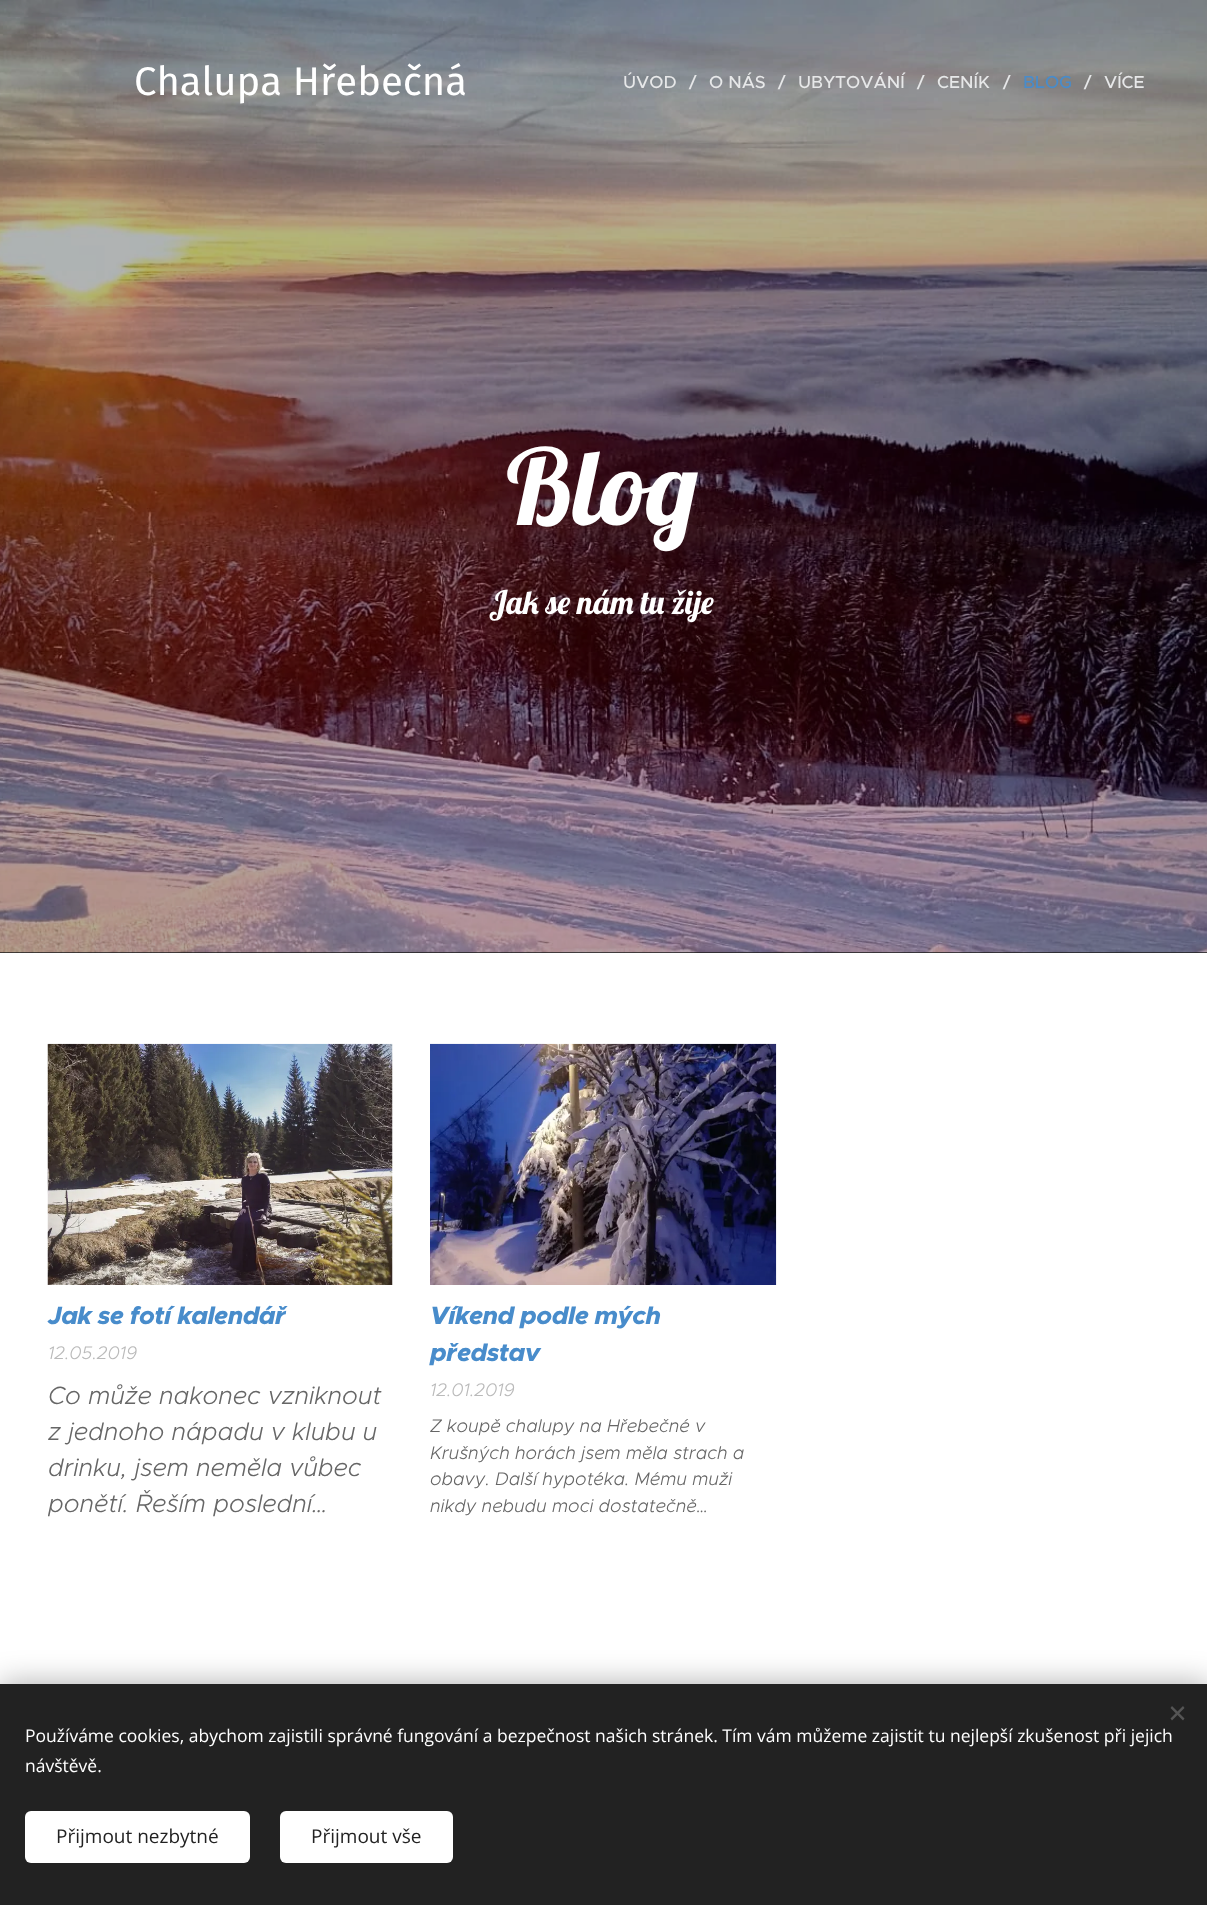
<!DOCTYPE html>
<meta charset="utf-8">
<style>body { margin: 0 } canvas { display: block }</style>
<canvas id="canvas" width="1207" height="1905"></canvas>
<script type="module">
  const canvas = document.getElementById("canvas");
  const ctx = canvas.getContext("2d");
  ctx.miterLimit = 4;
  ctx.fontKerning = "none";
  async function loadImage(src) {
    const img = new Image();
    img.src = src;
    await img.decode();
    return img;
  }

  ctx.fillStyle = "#ffffff";
  ctx.fillRect(0, 0, 1207, 1905);
  ctx.fillStyle = "#1b1b1b";
  ctx.fillRect(0, 952, 1207, 1);
  ctx.drawImage(await loadImage("img1.png"), 0, 0, 1207, 953);
  ctx.font = "40px Fira Sans";
  ctx.fillStyle = "#ffffff";
  ctx.fillText("Chalupa Hřebečná", 134, 95);
  ctx.font = "500 17.5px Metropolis";
  ctx.fillStyle = "#e7e8e9";
  ctx.fillText("ÚVOD", 623, 88);
  ctx.fillText("/", 689, 88);
  ctx.fillText("O NÁS", 709, 88);
  ctx.fillText("/", 778, 88);
  ctx.fillText("UBYTOVÁNÍ", 798, 88);
  ctx.fillText("/", 917, 88);
  ctx.fillText("CENÍK", 937, 88);
  ctx.fillText("/", 1003, 88);
  ctx.fillStyle = "#488ccb";
  ctx.fillText("BLOG", 1023, 88);
  ctx.fillStyle = "#e7e8e9";
  ctx.fillText("/", 1084, 88);
  ctx.fillText("VÍCE", 1104, 88);
  ctx.font = "105px Lobster";
  ctx.fillStyle = "#ffffff";
  ctx.fillText("Blog", 506, 525);
  ctx.font = "32.5px Lobster";
  ctx.fillText("Jak se nám tu žije", 489, 614);
  ctx.drawImage(await loadImage("img2.png"), 47, 1043, 346, 242);
  ctx.letterSpacing = "-0.5px";
  ctx.font = "italic 800 25px Metropolis";
  ctx.fillStyle = "#488ccb";
  ctx.fillText("Jak se fotí kalendář", 48, 1324);
  ctx.letterSpacing = "0px";
  ctx.font = "italic 300 18.25px Metropolis";
  ctx.fillStyle = "#bababa";
  ctx.fillText("12.05.2019", 48, 1359);
  ctx.font = "italic 300 25px Metropolis";
  ctx.fillStyle = "#666666";
  ctx.fillText("Co může nakonec vzniknout", 48, 1404);
  ctx.fillText("z jednoho nápadu v klubu u", 48, 1440);
  ctx.fillText("drinku, jsem neměla vůbec", 48, 1476);
  ctx.save();
  ctx.beginPath();
  ctx.rect(48, 1378, 345, 145);
  ctx.clip();
  ctx.fillText("ponětí. Řeším poslední…", 48, 1512);
  ctx.restore();
  ctx.drawImage(await loadImage("img3.png"), 430, 1043, 347, 242);
  ctx.letterSpacing = "-0.5px";
  ctx.font = "italic 800 25px Metropolis";
  ctx.fillStyle = "#488ccb";
  ctx.fillText("Víkend podle mých", 430, 1324);
  ctx.fillText("představ", 430, 1361);
  ctx.letterSpacing = "0px";
  ctx.font = "italic 300 18.25px Metropolis";
  ctx.fillStyle = "#bababa";
  ctx.fillText("12.01.2019", 430, 1396);
  ctx.fillStyle = "#666666";
  ctx.fillText("Z koupě chalupy na Hřebečné v", 430, 1432);
  ctx.fillText("Krušných horách jsem měla strach a", 430, 1459);
  ctx.fillText("obavy. Další hypotéka. Mému muži", 430, 1485);
  ctx.fillText("nikdy nebudu moci dostatečně…", 430, 1512);
  ctx.fillStyle = "rgba(0, 0, 0, 0.33)";
  ctx.filter = "blur(15.5px)";
  ctx.beginPath();
  ctx.rect(0, 1684, 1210, 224);
  ctx.fill();
  ctx.filter = "none";
  ctx.fillStyle = "#222222";
  ctx.fillRect(0, 1684, 1207, 221);
  ctx.fillStyle = "#555555";
  ctx.beginPath();
  ctx.moveTo(1170.5, 1718.5);
  ctx.lineTo(1183, 1706);
  ctx.lineTo(1184.5, 1708);
  ctx.lineTo(1172, 1720.5);
  ctx.closePath();
  ctx.fill();
  ctx.beginPath();
  ctx.moveTo(1172, 1706);
  ctx.lineTo(1184.5, 1718.5);
  ctx.lineTo(1183, 1720.5);
  ctx.lineTo(1170.5, 1708);
  ctx.closePath();
  ctx.fill();
  ctx.font = "17.5px Open Sans";
  ctx.fillStyle = "#ffffff";
  ctx.fillText("Používáme cookies, abychom zajistili správné fungování a bezpečnost našich stránek. Tím vám můžeme zajistit tu nejlepší zkušenost při jejich", 25, 1742);
  ctx.fillText("návštěvě.", 25, 1772);
  ctx.beginPath();
  ctx.roundRect(25, 1811, 225, 52, 6);
  ctx.fill();
  ctx.font = "19px Open Sans";
  ctx.fillStyle = "#222222";
  ctx.fillText("Přijmout nezbytné", 56, 1843);
  ctx.fillStyle = "#ffffff";
  ctx.beginPath();
  ctx.roundRect(280, 1811, 173, 52, 6);
  ctx.fill();
  ctx.fillStyle = "#222222";
  ctx.fillText("Přijmout vše", 311, 1843);
</script>
